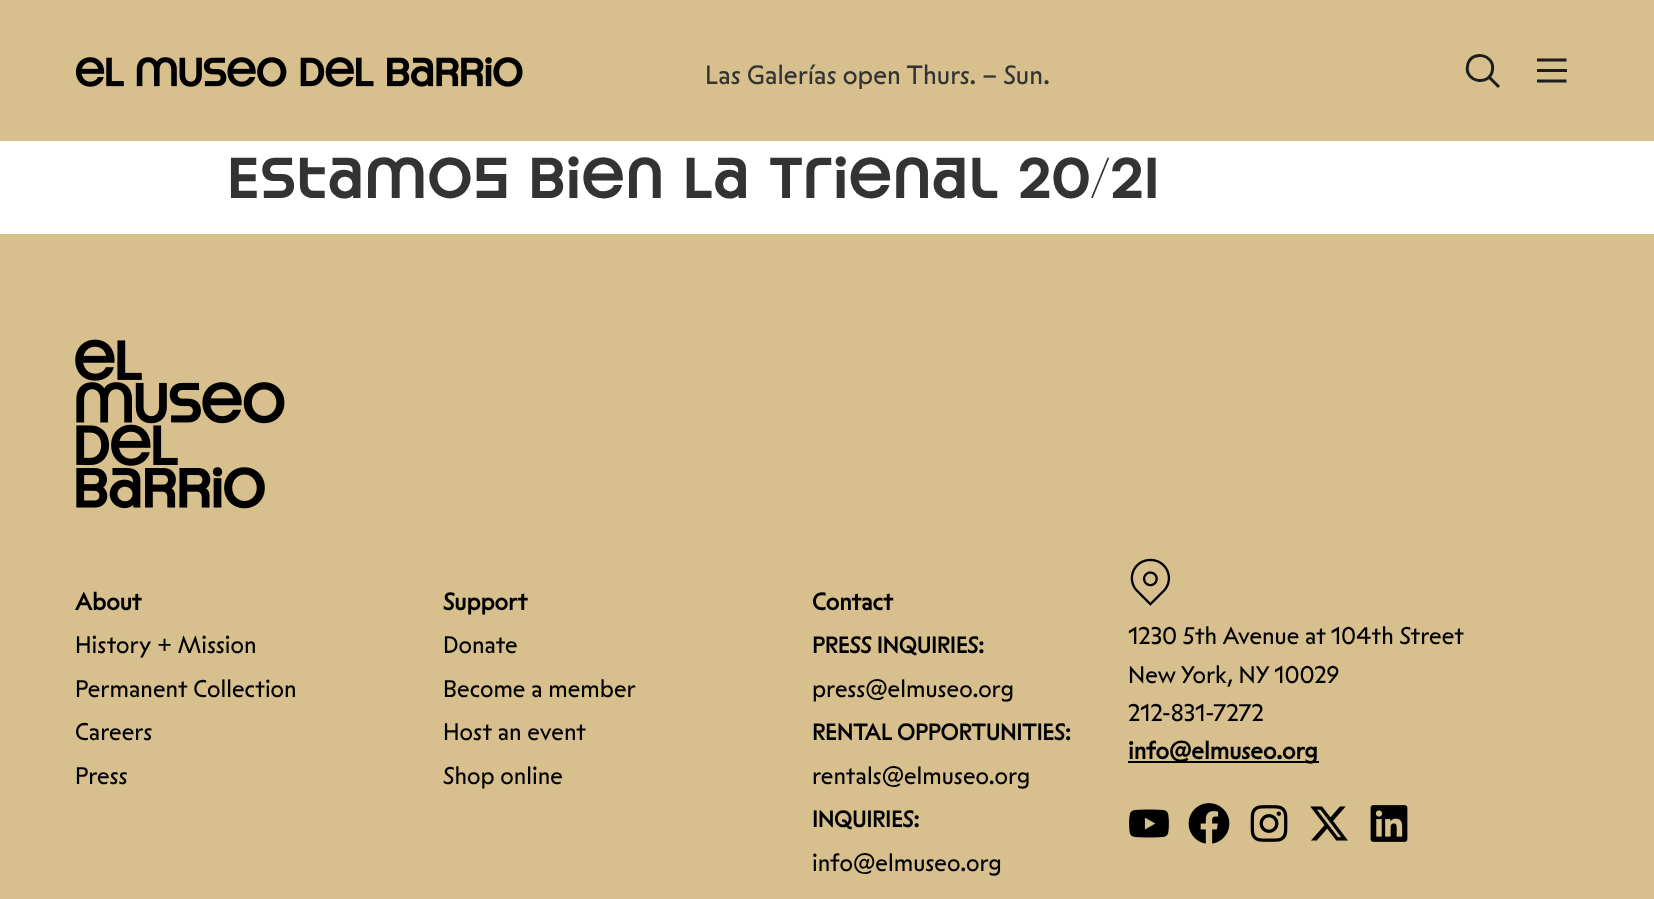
<!DOCTYPE html>
<meta charset="utf-8">
<style>body { margin: 0 } canvas { display: block }</style>
<canvas id="canvas" width="1654" height="899"></canvas>
<script type="module">
  const canvas = document.getElementById("canvas");
  const ctx = canvas.getContext("2d");
  ctx.miterLimit = 4;
  ctx.fontKerning = "normal";
  async function loadImage(src) {
    const img = new Image();
    img.src = src;
    await img.decode();
    return img;
  }

  ctx.fillStyle = "#ffffff";
  ctx.fillRect(0, 0, 1654, 899);
  ctx.fillStyle = "#d7c08d";
  ctx.fillRect(0, 0, 1654, 141);
  ctx.drawImage(await loadImage("img1.png"), 75, 57, 448, 30);
  ctx.font = "26.4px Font";
  ctx.fillStyle = "#333333";
  ctx.fillText("Las Galerías open Thurs. – Sun.", 705, 84);
  ctx.beginPath();
  ctx.moveTo(1489, 77);
  ctx.lineTo(1499, 87);
  ctx.moveTo(1467.5, 66);
  ctx.bezierCurveTo(1470, 49.5, 1495, 53.5, 1492.5, 70);
  ctx.bezierCurveTo(1490, 86.5, 1464.5, 82.5, 1467.5, 66);
  ctx.closePath();
  ctx.strokeStyle = "#1d1d1b";
  ctx.lineWidth = 3;
  ctx.stroke();
  ctx.fillStyle = "#1d1d1b";
  ctx.fillRect(1537, 69, 30, 3);
  ctx.beginPath();
  ctx.moveTo(1537, 81);
  ctx.lineTo(1566.5, 81);
  ctx.moveTo(1537, 60);
  ctx.lineTo(1566.5, 60);
  ctx.lineWidth = 3.2;
  ctx.stroke();
  ctx.font = "bold 48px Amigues";
  ctx.fillStyle = "#333333";
  ctx.fillText("Estamos Bien La Trienal 20/21", 227, 198);
  ctx.fillStyle = "#d7c08d";
  ctx.fillRect(0, 234, 1654, 665);
  ctx.drawImage(await loadImage("img2.png"), 75, 339, 210, 170);
  ctx.font = "bold 24px Font";
  ctx.fillStyle = "#000000";
  ctx.fillText("About", 75, 610);
  ctx.font = "24px Font";
  ctx.fillText("History + Mission", 75, 653);
  ctx.fillText("Permanent Collection", 75, 697);
  ctx.fillText("Careers", 75, 740);
  ctx.fillText("Press", 75, 784);
  ctx.font = "bold 24px Font";
  ctx.fillText("Support", 443, 610);
  ctx.font = "24px Font";
  ctx.fillText("Donate", 443, 653);
  ctx.fillText("Become a member", 443, 697);
  ctx.fillText("Host an event", 443, 740);
  ctx.fillText("Shop online", 443, 784);
  ctx.font = "bold 24px Font";
  ctx.fillText("Contact", 812, 610);
  ctx.font = "bold 22.75px Font";
  ctx.fillText("PRESS INQUIRIES:", 812, 653);
  ctx.font = "24px Font";
  ctx.fillText("press@elmuseo.org", 812, 697);
  ctx.font = "bold 22.75px Font";
  ctx.fillText("RENTAL OPPORTUNITIES:", 812, 740);
  ctx.font = "24px Font";
  ctx.fillText("rentals@elmuseo.org", 812, 784);
  ctx.font = "bold 22.75px Font";
  ctx.fillText("INQUIRIES:", 812, 827);
  ctx.font = "24px Font";
  ctx.fillText("info@elmuseo.org", 812, 871);
  ctx.drawImage(await loadImage("img3.png"), 1130, 558, 41, 48);
  ctx.fillText("1230 5th Avenue at 104th Street", 1128, 644);
  ctx.fillText("New York, NY 10029", 1128, 683);
  ctx.fillText("212-831-7272", 1128, 721);
  ctx.fillRect(1128, 761, 191, 2);
  ctx.font = "bold 24px Font";
  ctx.fillText("info@elmuseo.org", 1128, 759);
  ctx.drawImage(await loadImage("img4.png"), 1129, 809, 40, 29);
  ctx.drawImage(await loadImage("img5.png"), 1188, 803, 42, 41);
  ctx.drawImage(await loadImage("img6.png"), 1250, 805, 38, 37);
  ctx.drawImage(await loadImage("img7.png"), 1310, 806, 38, 35);
  ctx.drawImage(await loadImage("img8.png"), 1370, 805, 38, 37);
</script>
